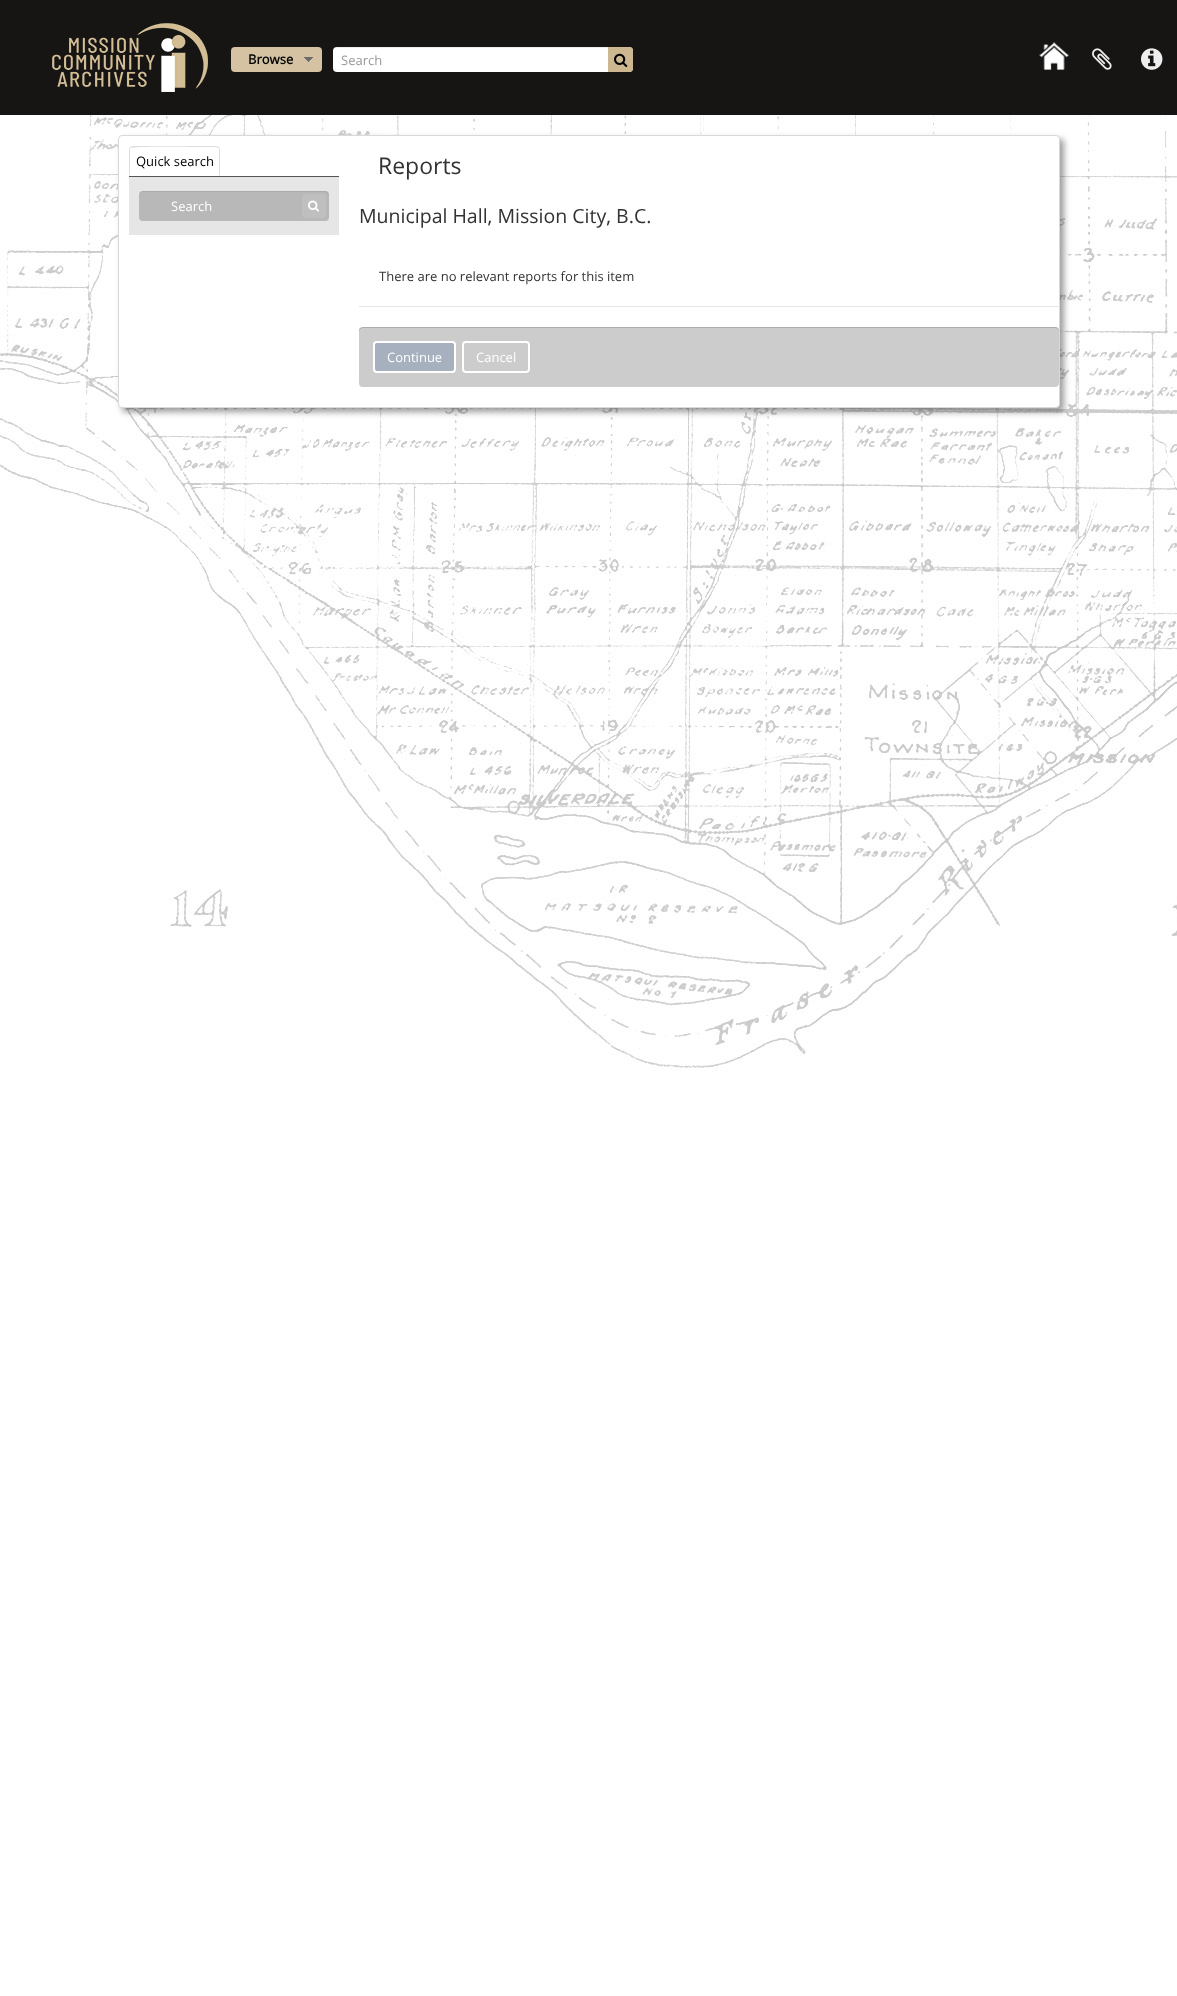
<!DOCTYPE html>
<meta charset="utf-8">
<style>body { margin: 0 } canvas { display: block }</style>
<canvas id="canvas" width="1177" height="1996"></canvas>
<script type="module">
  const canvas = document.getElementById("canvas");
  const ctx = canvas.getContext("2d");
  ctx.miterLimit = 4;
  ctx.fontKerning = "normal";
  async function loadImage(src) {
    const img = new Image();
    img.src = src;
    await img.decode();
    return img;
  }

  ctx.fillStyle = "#ffffff";
  ctx.fillRect(0, 0, 1177, 1996);
  ctx.drawImage(await loadImage("img1.png"), 0, 115, 1177, 956);
  ctx.fillStyle = "#161514";
  ctx.fillRect(0, 0, 1177, 115);
  ctx.drawImage(await loadImage("img2.png"), 52, 23, 156, 69);
  ctx.fillStyle = "#d4c2a2";
  ctx.beginPath();
  ctx.roundRect(231, 47, 91, 25, 4);
  ctx.fill();
  ctx.drawImage(await loadImage("img3.png"), 304, 57, 9, 5);
  ctx.font = "bold 13px Open Sans";
  ctx.fillStyle = "#000000";
  ctx.fillText("Browse", 248, 64);
  ctx.fillStyle = "#ffffff";
  ctx.beginPath();
  ctx.roundRect(333, 47, 300, 25, 4);
  ctx.fill();
  ctx.fillStyle = "rgba(0, 0, 0, 0.07)";
  ctx.beginPath();
  ctx.moveTo(337, 48);
  ctx.lineTo(631, 48);
  ctx.bezierCurveTo(632, 48, 633, 49, 633, 51);
  ctx.bezierCurveTo(633, 49, 631, 47, 629, 47);
  ctx.lineTo(337, 47);
  ctx.bezierCurveTo(335, 47, 333, 49, 333, 51);
  ctx.bezierCurveTo(333, 49, 335, 48, 337, 48);
  ctx.closePath();
  ctx.fill();
  ctx.font = "13px Open Sans";
  ctx.fillStyle = "#999999";
  ctx.fillText("Search", 341, 65);
  ctx.fillStyle = "#ccb791";
  ctx.beginPath();
  ctx.roundRect(608, 47, 25, 25, [0, 4, 4, 0]);
  ctx.fill();
  ctx.drawImage(await loadImage("img4.png"), 614, 53, 14, 14);
  ctx.drawImage(await loadImage("img5.png"), 1039, 42, 30, 28);
  ctx.drawImage(await loadImage("img6.png"), 1092, 48, 20, 22);
  ctx.drawImage(await loadImage("img7.png"), 1141, 48, 22, 22);
  ctx.fillStyle = "rgba(0, 0, 0, 0.39)";
  ctx.filter = "blur(3px)";
  ctx.beginPath();
  ctx.roundRect(122, 139, 942, 273, 4);
  ctx.fill();
  ctx.filter = "none";
  ctx.fillStyle = "#ffffff";
  ctx.beginPath();
  ctx.roundRect(118.5, 135.5, 941, 272, 3.5);
  ctx.fill();
  ctx.strokeStyle = "#d9d9d9";
  ctx.stroke();
  ctx.fillStyle = "#555555";
  ctx.fillRect(129, 176, 210, 1);
  ctx.fillStyle = "#dddddd";
  ctx.beginPath();
  ctx.moveTo(133, 146);
  ctx.lineTo(130, 147);
  ctx.lineTo(131, 148);
  ctx.bezierCurveTo(133, 146, 195, 147, 202, 147);
  ctx.lineTo(216, 147);
  ctx.lineTo(218, 148);
  ctx.lineTo(219, 147);
  ctx.lineTo(216, 146);
  ctx.closePath();
  ctx.fill();
  ctx.beginPath();
  ctx.moveTo(220, 176);
  ctx.lineTo(220, 150);
  ctx.bezierCurveTo(220, 149, 219.5, 148, 219, 147);
  ctx.lineTo(218, 148);
  ctx.bezierCurveTo(219, 148, 219, 149, 219, 150);
  ctx.lineTo(219, 175);
  ctx.closePath();
  ctx.fill();
  ctx.beginPath();
  ctx.moveTo(129, 176);
  ctx.lineTo(130, 175);
  ctx.lineTo(130, 150);
  ctx.bezierCurveTo(130, 149, 130, 148, 131, 148);
  ctx.lineTo(130, 147);
  ctx.bezierCurveTo(129.5, 148, 129, 149, 129, 150);
  ctx.closePath();
  ctx.fill();
  ctx.fillStyle = "#000000";
  ctx.fillText("Quick search", 136, 166);
  ctx.fillStyle = "#e6e6e6";
  ctx.fillRect(129, 177, 210, 58);
  ctx.fillStyle = "#b8b8b8";
  ctx.beginPath();
  ctx.roundRect(139, 191, 190, 30, 4);
  ctx.fill();
  ctx.fillStyle = "rgba(0, 0, 0, 0.07)";
  ctx.beginPath();
  ctx.moveTo(143, 192);
  ctx.lineTo(325, 192);
  ctx.bezierCurveTo(327, 192, 329, 194, 329, 196);
  ctx.bezierCurveTo(329, 193, 328, 191, 325, 191);
  ctx.lineTo(142, 191);
  ctx.bezierCurveTo(140, 192, 139, 194, 139, 196);
  ctx.bezierCurveTo(139, 194, 141, 192, 143, 192);
  ctx.closePath();
  ctx.fill();
  ctx.fillStyle = "#ffffff";
  ctx.fillText("Search", 171, 211);
  ctx.fillStyle = "#bfbfbf";
  ctx.beginPath();
  ctx.roundRect(302, 194, 24, 24, 4);
  ctx.fill();
  ctx.drawImage(await loadImage("img8.png"), 308, 200, 11, 12);
  ctx.font = "23px Open Sans";
  ctx.fillStyle = "#333333";
  ctx.fillText("Reports", 378, 174);
  ctx.font = "19.5px Open Sans";
  ctx.fillText("Municipal Hall, Mission City, B.C.", 359, 223);
  ctx.fillStyle = "#e5e5e5";
  ctx.fillRect(359, 306, 700, 1);
  ctx.font = "13px Open Sans";
  ctx.fillStyle = "#333333";
  ctx.fillText("There are no relevant reports for this item", 379, 281);
  ctx.fillStyle = "#cccccc";
  ctx.beginPath();
  ctx.roundRect(359, 327, 700, 60, 4);
  ctx.fill();
  ctx.fillStyle = "rgba(0, 0, 0, 0.15)";
  ctx.beginPath();
  ctx.moveTo(363, 328);
  ctx.lineTo(1055, 328);
  ctx.bezierCurveTo(1057, 328, 1059, 330, 1059, 332);
  ctx.bezierCurveTo(1059, 329, 1058, 327, 1055, 327);
  ctx.lineTo(363, 327);
  ctx.lineTo(360, 328);
  ctx.lineTo(359, 329);
  ctx.lineTo(359, 332);
  ctx.bezierCurveTo(359, 330, 361, 328, 363, 328);
  ctx.closePath();
  ctx.fill();
  ctx.fillStyle = "#a6b0bf";
  ctx.beginPath();
  ctx.roundRect(374, 342, 81, 30, 3);
  ctx.fill();
  ctx.strokeStyle = "#ffffff";
  ctx.lineWidth = 2;
  ctx.stroke();
  ctx.fillStyle = "#ffffff";
  ctx.fillText("Continue", 387, 362);
  ctx.beginPath();
  ctx.roundRect(463, 342, 66, 30, 3);
  ctx.stroke();
  ctx.fillText("Cancel", 476, 362);
</script>
